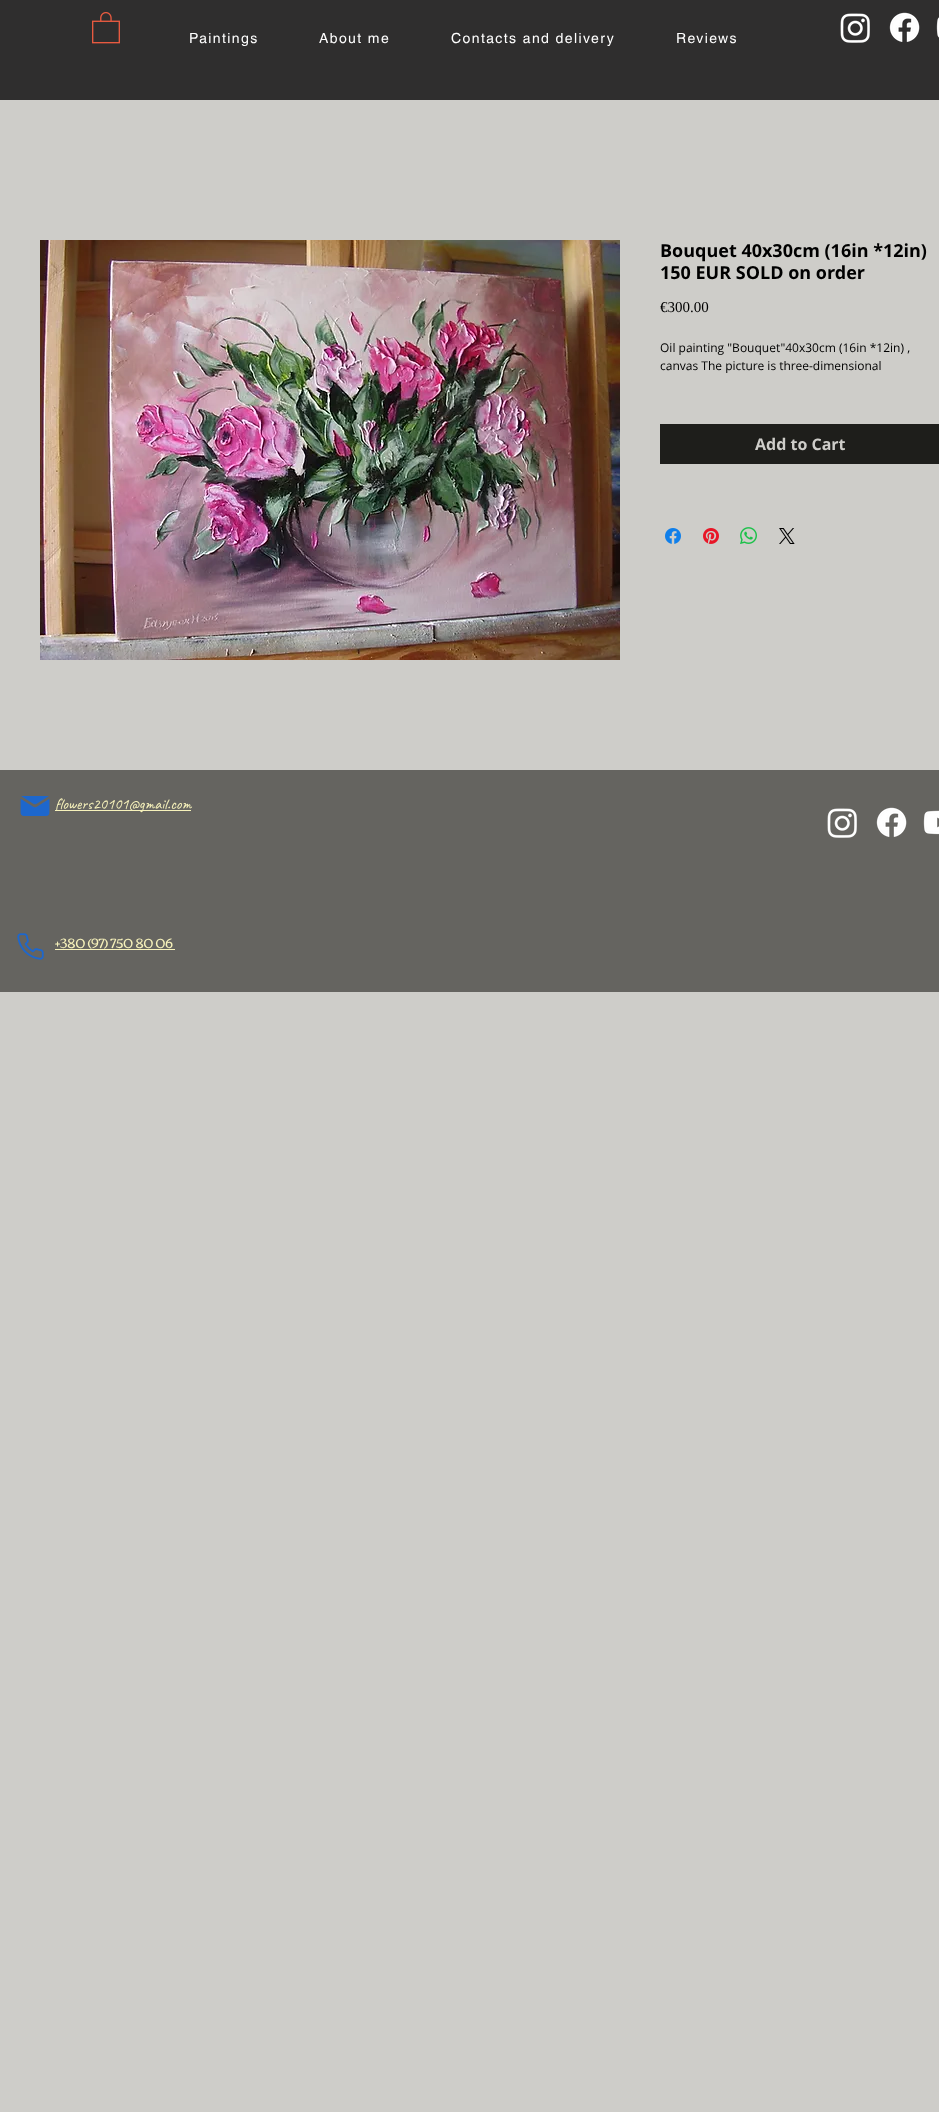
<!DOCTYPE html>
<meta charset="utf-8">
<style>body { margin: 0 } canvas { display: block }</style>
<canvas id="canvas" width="939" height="2112"></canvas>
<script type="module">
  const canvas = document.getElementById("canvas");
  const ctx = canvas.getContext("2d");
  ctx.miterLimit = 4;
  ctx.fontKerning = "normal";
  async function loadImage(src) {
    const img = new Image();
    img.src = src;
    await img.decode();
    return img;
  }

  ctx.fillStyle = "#cecdc9";
  ctx.fillRect(0, 0, 939, 2112);
  ctx.fillStyle = "#2f2e2e";
  ctx.fillRect(0, 0, 939, 100);
  ctx.drawImage(await loadImage("img1.png"), 92, 12, 28, 32);
  ctx.letterSpacing = "1.4px";
  ctx.font = "14px helvetica";
  ctx.fillStyle = "#ffffff";
  ctx.fillText("Paintings", 189, 43);
  ctx.fillText("About me", 319, 43);
  ctx.fillText("Contacts and delivery", 451, 43);
  ctx.fillText("Reviews", 676, 43);
  ctx.drawImage(await loadImage("img2.png"), 840, 13, 30, 30);
  ctx.drawImage(await loadImage("img3.png"), 889, 12, 31, 30);
  ctx.drawImage(await loadImage("img4.png"), 936, 17, 3, 21);
  ctx.drawImage(await loadImage("img5.png"), 40, 240, 580, 420);
  ctx.letterSpacing = "0px";
  ctx.font = "bold 18px Open Sans";
  ctx.fillStyle = "#000000";
  ctx.fillText("Bouquet 40x30cm (16in *12in)", 660, 257);
  ctx.fillText("150 EUR SOLD on order", 660, 279);
  ctx.font = "15px Liberation Serif";
  ctx.fillText("€300.00", 660, 312);
  ctx.font = "12px Open Sans";
  ctx.fillText("Oil painting \"Bouquet\"40x30cm (16in *12in) ,", 660, 352);
  ctx.fillText("canvas The picture is three-dimensional", 660, 370);
  ctx.fillStyle = "#1e1e1b";
  ctx.fillRect(660, 424, 279, 40);
  ctx.font = "bold 16px Open Sans";
  ctx.fillStyle = "#cecdc9";
  ctx.fillText("Add to Cart", 755, 450);
  ctx.drawImage(await loadImage("img6.png"), 665, 528, 16, 16);
  ctx.drawImage(await loadImage("img7.png"), 703, 528, 16, 16);
  ctx.drawImage(await loadImage("img8.png"), 740, 527, 17, 17);
  ctx.drawImage(await loadImage("img9.png"), 779, 528, 16, 16);
  ctx.fillStyle = "#656460";
  ctx.fillRect(0, 770, 939, 222);
  ctx.drawImage(await loadImage("img10.png"), 20, 796, 30, 20);
  ctx.fillStyle = "#f7f2bb";
  ctx.fillRect(55, 810, 136, 1);
  ctx.font = "16px Caveat";
  ctx.fillText("flowers20101@gmail.com", 55, 809);
  ctx.drawImage(await loadImage("img11.png"), 827, 808, 30, 30);
  ctx.drawImage(await loadImage("img12.png"), 876, 807, 31, 30);
  ctx.drawImage(await loadImage("img13.png"), 923, 810, 16, 25);
  ctx.drawImage(await loadImage("img14.png"), 17, 933, 27, 27);
  ctx.font = "13px Corben";
  ctx.fillText("+380 (97) 750 80 06", 55, 948);
  ctx.fillRect(55, 949, 120, 1);
</script>
